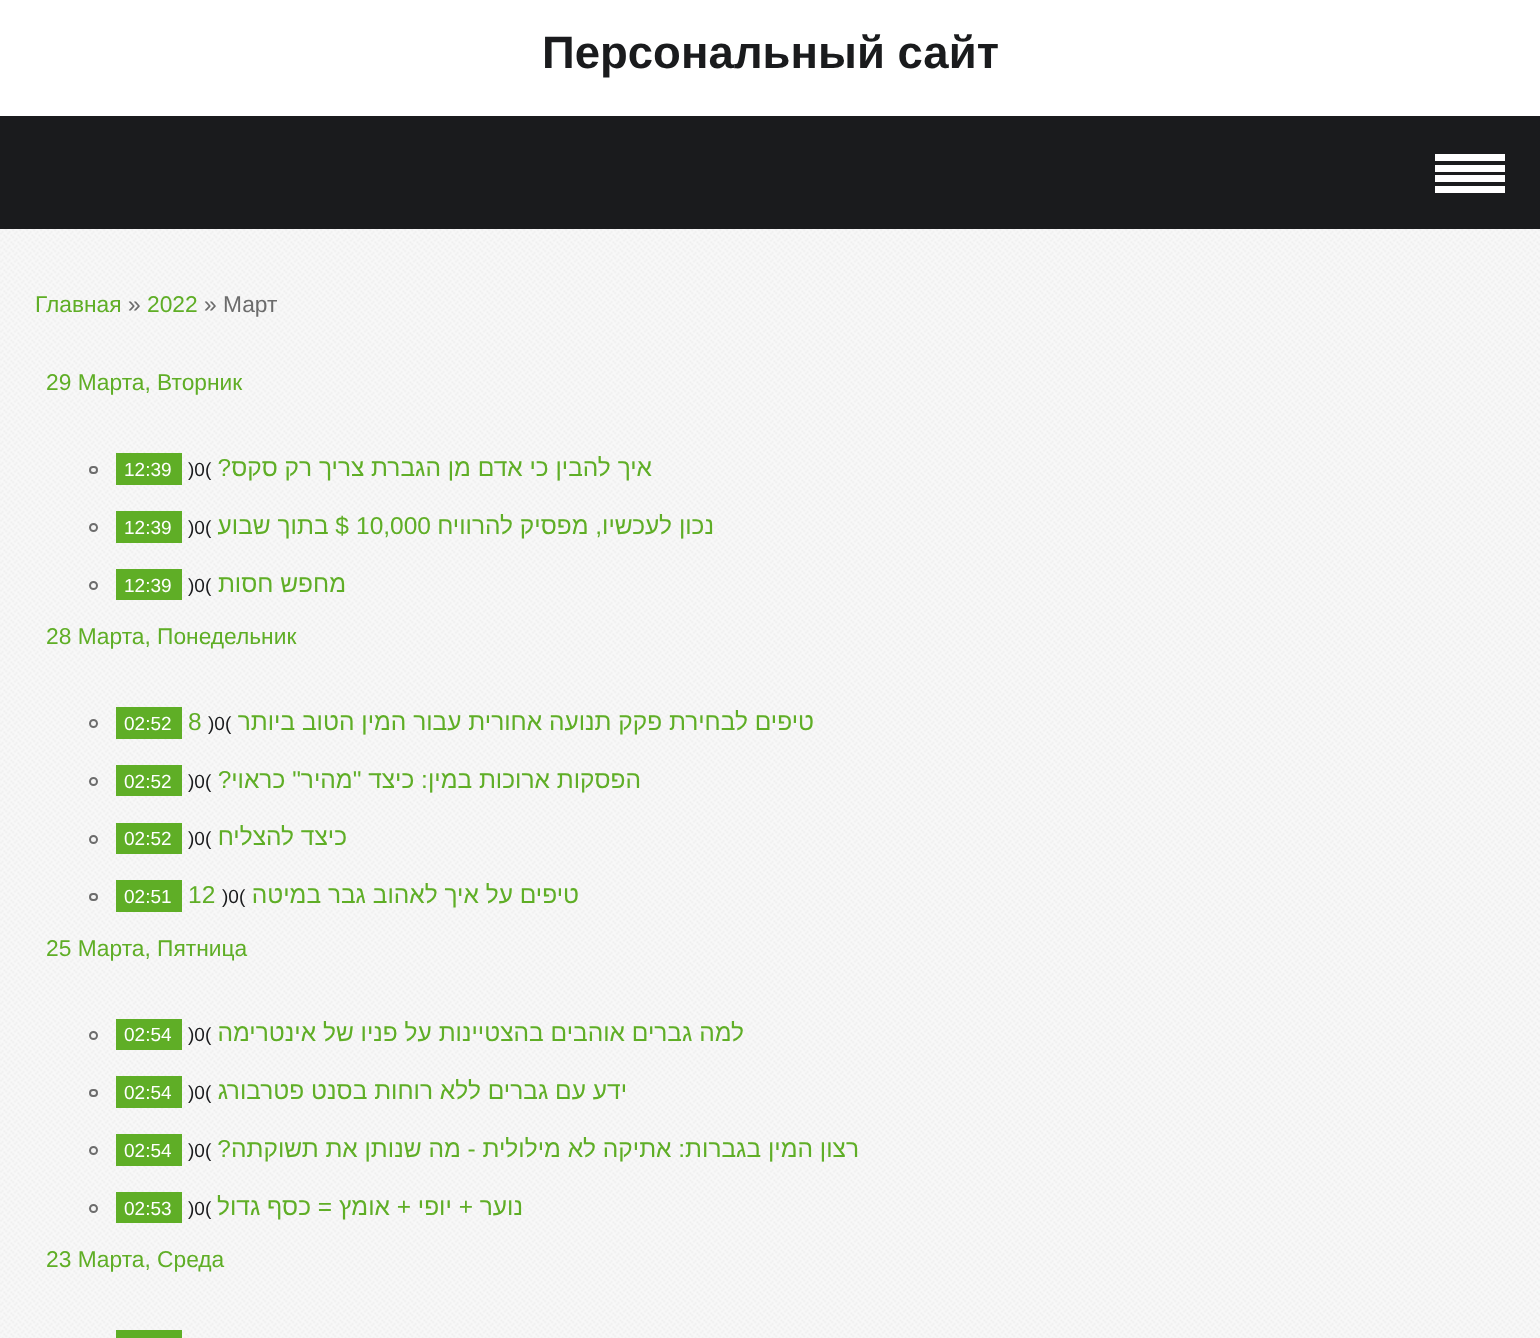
<!DOCTYPE html>
<meta charset="utf-8">
<style>body { margin: 0 } canvas { display: block }</style>
<canvas id="canvas" width="1540" height="1338"></canvas>
<script type="module">
  const canvas = document.getElementById("canvas");
  const ctx = canvas.getContext("2d");
  ctx.miterLimit = 4;
  ctx.fontKerning = "normal";
  async function loadImage(src) {
    const img = new Image();
    img.src = src;
    await img.decode();
    return img;
  }

  ctx.fillStyle = "#ffffff";
  ctx.fillRect(0, 0, 1540, 1338);
  ctx.drawImage(await loadImage("img1.png"), 0, 229, 1540, 1109);
  ctx.font = "bold 45.5px Liberation Sans";
  ctx.fillStyle = "#1a1b1d";
  ctx.fillText("Персональный сайт", 542, 68);
  ctx.fillRect(0, 116, 1540, 113);
  ctx.fillStyle = "#ffffff";
  ctx.fillRect(1435, 154, 70, 7);
  ctx.fillRect(1435, 165, 70, 7);
  ctx.fillRect(1435, 175, 70, 7);
  ctx.fillRect(1435, 186, 70, 7);
  ctx.font = "22.75px Liberation Sans";
  ctx.fillStyle = "#6c6c6c";
  ctx.fillText("» Март", 204, 312);
  ctx.fillStyle = "#5fae26";
  ctx.fillText("2022", 147, 312);
  ctx.fillStyle = "#6c6c6c";
  ctx.fillText("»", 128, 312);
  ctx.fillStyle = "#5fae26";
  ctx.fillText("Главная", 35, 312);
  ctx.fillText("29 Марта, Вторник", 46, 390);
  ctx.direction = "rtl";
  ctx.font = "24.5px Liberation Sans";
  ctx.fillText("איך להבין כי אדם מן הגברת צריך רק סקס?", 652, 476);
  ctx.direction = "ltr";
  ctx.font = "19px Liberation Sans";
  ctx.fillStyle = "#1a1b1d";
  ctx.fillText(")0(", 188, 476);
  ctx.fillStyle = "#5fae26";
  ctx.fillRect(116, 453, 66, 32);
  ctx.fillStyle = "#ffffff";
  ctx.fillText("12:39", 124, 476);
  ctx.beginPath();
  ctx.roundRect(90, 467, 7, 6, 3);
  ctx.strokeStyle = "#6c6c6c";
  ctx.lineWidth = 2;
  ctx.stroke();
  ctx.direction = "rtl";
  ctx.font = "24.5px Liberation Sans";
  ctx.fillStyle = "#5fae26";
  ctx.fillText("נכון לעכשיו, מפסיק להרוויח", 714, 534);
  ctx.direction = "ltr";
  ctx.fillText("10,000", 356, 534);
  ctx.direction = "rtl";
  ctx.fillText("$ בתוך שבוע", 349, 534);
  ctx.direction = "ltr";
  ctx.font = "19px Liberation Sans";
  ctx.fillStyle = "#1a1b1d";
  ctx.fillText(")0(", 188, 534);
  ctx.fillStyle = "#5fae26";
  ctx.fillRect(116, 511, 66, 32);
  ctx.fillStyle = "#ffffff";
  ctx.fillText("12:39", 124, 534);
  ctx.beginPath();
  ctx.arc(93.5, 527.5, 3.5, 0, Math.PI * 2);
  ctx.stroke();
  ctx.direction = "rtl";
  ctx.font = "24.5px Liberation Sans";
  ctx.fillStyle = "#5fae26";
  ctx.fillText("מחפש חסות", 346, 592);
  ctx.direction = "ltr";
  ctx.font = "19px Liberation Sans";
  ctx.fillStyle = "#1a1b1d";
  ctx.fillText(")0(", 188, 592);
  ctx.fillStyle = "#5fae26";
  ctx.fillRect(116, 569, 66, 31);
  ctx.fillStyle = "#ffffff";
  ctx.fillText("12:39", 124, 592);
  ctx.beginPath();
  ctx.arc(93.5, 585.5, 3.5, 0, Math.PI * 2);
  ctx.stroke();
  ctx.font = "22.75px Liberation Sans";
  ctx.fillStyle = "#5fae26";
  ctx.fillText("28 Марта, Понедельник", 46, 644);
  ctx.direction = "rtl";
  ctx.font = "24.5px Liberation Sans";
  ctx.fillText("טיפים לבחירת פקק תנועה אחורית עבור המין הטוב ביותר", 814, 730);
  ctx.direction = "ltr";
  ctx.font = "19px Liberation Sans";
  ctx.fillStyle = "#1a1b1d";
  ctx.fillText(")0(", 208, 730);
  ctx.font = "24.5px Liberation Sans";
  ctx.fillStyle = "#5fae26";
  ctx.fillText("8", 188, 730);
  ctx.fillRect(116, 707, 66, 32);
  ctx.font = "19px Liberation Sans";
  ctx.fillStyle = "#ffffff";
  ctx.fillText("02:52", 124, 730);
  ctx.beginPath();
  ctx.arc(93.5, 723.5, 3.5, 0, Math.PI * 2);
  ctx.stroke();
  ctx.direction = "rtl";
  ctx.font = "24.5px Liberation Sans";
  ctx.fillStyle = "#5fae26";
  ctx.fillText("הפסקות ארוכות במין: כיצד \"מהיר\" כראוי?", 641, 788);
  ctx.direction = "ltr";
  ctx.font = "19px Liberation Sans";
  ctx.fillStyle = "#1a1b1d";
  ctx.fillText(")0(", 188, 788);
  ctx.fillStyle = "#5fae26";
  ctx.fillRect(116, 765, 66, 31);
  ctx.fillStyle = "#ffffff";
  ctx.fillText("02:52", 124, 788);
  ctx.beginPath();
  ctx.arc(93.5, 781.5, 3.5, 0, Math.PI * 2);
  ctx.stroke();
  ctx.direction = "rtl";
  ctx.font = "24.5px Liberation Sans";
  ctx.fillStyle = "#5fae26";
  ctx.fillText("כיצד להצליח", 347, 845);
  ctx.direction = "ltr";
  ctx.font = "19px Liberation Sans";
  ctx.fillStyle = "#1a1b1d";
  ctx.fillText(")0(", 188, 845);
  ctx.fillStyle = "#5fae26";
  ctx.fillRect(116, 823, 66, 31);
  ctx.fillStyle = "#ffffff";
  ctx.fillText("02:52", 124, 845);
  ctx.beginPath();
  ctx.arc(93.5, 839.5, 3.5, 0, Math.PI * 2);
  ctx.stroke();
  ctx.direction = "rtl";
  ctx.font = "24.5px Liberation Sans";
  ctx.fillStyle = "#5fae26";
  ctx.fillText("טיפים על איך לאהוב גבר במיטה", 579, 903);
  ctx.direction = "ltr";
  ctx.font = "19px Liberation Sans";
  ctx.fillStyle = "#1a1b1d";
  ctx.fillText(")0(", 222, 903);
  ctx.font = "24.5px Liberation Sans";
  ctx.fillStyle = "#5fae26";
  ctx.fillText("12", 188, 903);
  ctx.fillRect(116, 880, 66, 32);
  ctx.font = "19px Liberation Sans";
  ctx.fillStyle = "#ffffff";
  ctx.fillText("02:51", 124, 903);
  ctx.beginPath();
  ctx.roundRect(90, 894, 7, 6, 3);
  ctx.stroke();
  ctx.font = "22.75px Liberation Sans";
  ctx.fillStyle = "#5fae26";
  ctx.fillText("25 Марта, Пятница", 46, 956);
  ctx.direction = "rtl";
  ctx.font = "24.5px Liberation Sans";
  ctx.fillText("למה גברים אוהבים בהצטיינות על פניו של אינטרימה", 744, 1041);
  ctx.direction = "ltr";
  ctx.font = "19px Liberation Sans";
  ctx.fillStyle = "#1a1b1d";
  ctx.fillText(")0(", 188, 1041);
  ctx.fillStyle = "#5fae26";
  ctx.fillRect(116, 1019, 66, 31);
  ctx.fillStyle = "#ffffff";
  ctx.fillText("02:54", 124, 1041);
  ctx.beginPath();
  ctx.arc(93.5, 1035.5, 3.5, 0, Math.PI * 2);
  ctx.stroke();
  ctx.direction = "rtl";
  ctx.font = "24.5px Liberation Sans";
  ctx.fillStyle = "#5fae26";
  ctx.fillText("ידע עם גברים ללא רוחות בסנט פטרבורג", 627, 1099);
  ctx.direction = "ltr";
  ctx.font = "19px Liberation Sans";
  ctx.fillStyle = "#1a1b1d";
  ctx.fillText(")0(", 188, 1099);
  ctx.fillStyle = "#5fae26";
  ctx.fillRect(116, 1076, 66, 32);
  ctx.fillStyle = "#ffffff";
  ctx.fillText("02:54", 124, 1099);
  ctx.beginPath();
  ctx.roundRect(90, 1090, 7, 6, 3);
  ctx.stroke();
  ctx.direction = "rtl";
  ctx.font = "24.5px Liberation Sans";
  ctx.fillStyle = "#5fae26";
  ctx.fillText("רצון המין בגברות: אתיקה לא מילולית - מה שנותן את תשוקתה?", 859, 1157);
  ctx.direction = "ltr";
  ctx.font = "19px Liberation Sans";
  ctx.fillStyle = "#1a1b1d";
  ctx.fillText(")0(", 188, 1157);
  ctx.fillStyle = "#5fae26";
  ctx.fillRect(116, 1134, 66, 32);
  ctx.fillStyle = "#ffffff";
  ctx.fillText("02:54", 124, 1157);
  ctx.beginPath();
  ctx.arc(93.5, 1150.5, 3.5, 0, Math.PI * 2);
  ctx.stroke();
  ctx.direction = "rtl";
  ctx.font = "24.5px Liberation Sans";
  ctx.fillStyle = "#5fae26";
  ctx.fillText("נוער + יופי + אומץ = כסף גדול", 523, 1215);
  ctx.direction = "ltr";
  ctx.font = "19px Liberation Sans";
  ctx.fillStyle = "#1a1b1d";
  ctx.fillText(")0(", 188, 1215);
  ctx.fillStyle = "#5fae26";
  ctx.fillRect(116, 1192, 66, 31);
  ctx.fillStyle = "#ffffff";
  ctx.fillText("02:53", 124, 1215);
  ctx.beginPath();
  ctx.arc(93.5, 1208.5, 3.5, 0, Math.PI * 2);
  ctx.stroke();
  ctx.font = "22.75px Liberation Sans";
  ctx.fillStyle = "#5fae26";
  ctx.fillText("23 Марта, Среда", 46, 1267);
  ctx.fillRect(116, 1330, 66, 8);
</script>
